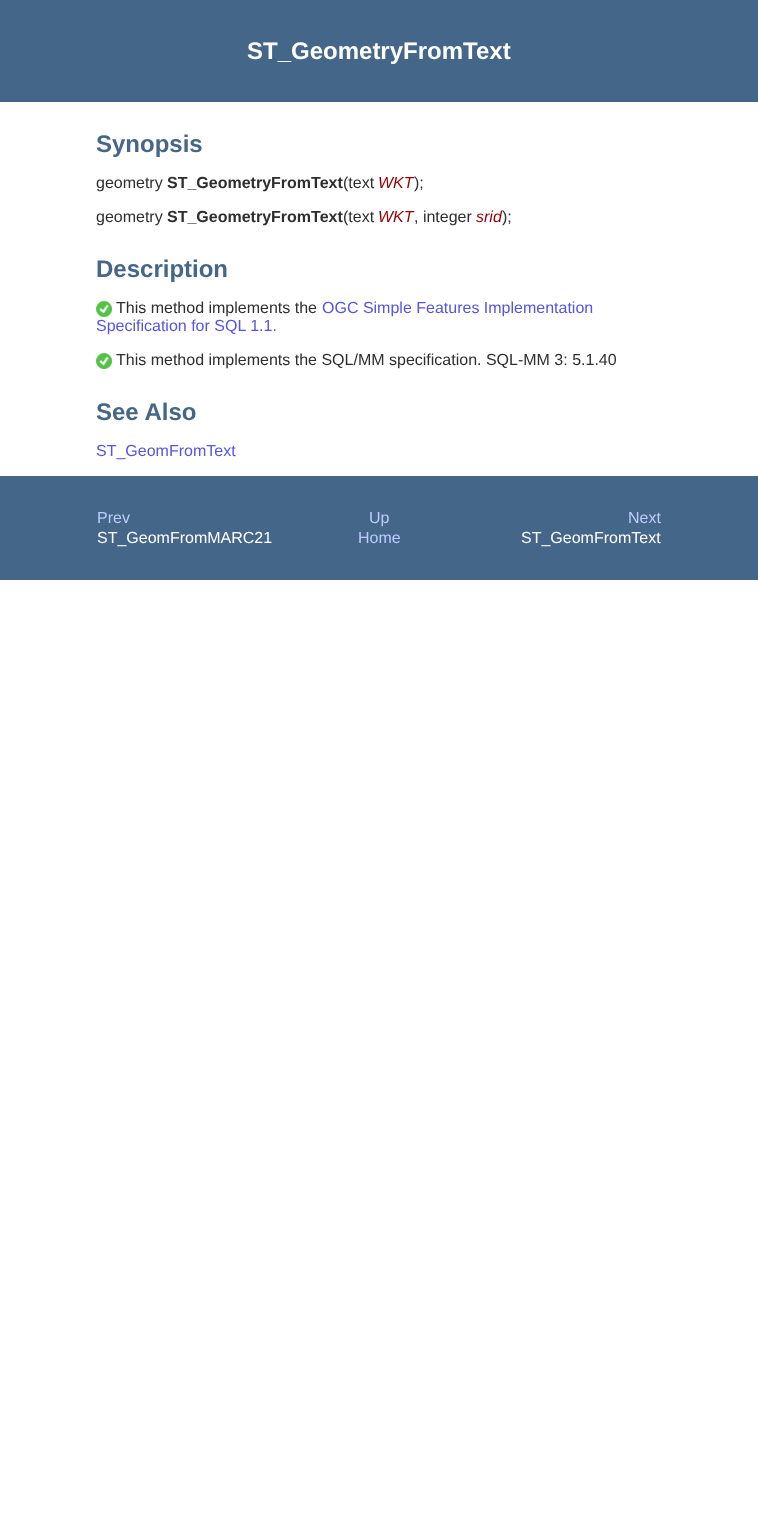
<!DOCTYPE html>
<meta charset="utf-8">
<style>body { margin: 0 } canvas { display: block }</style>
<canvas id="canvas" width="758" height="1516"></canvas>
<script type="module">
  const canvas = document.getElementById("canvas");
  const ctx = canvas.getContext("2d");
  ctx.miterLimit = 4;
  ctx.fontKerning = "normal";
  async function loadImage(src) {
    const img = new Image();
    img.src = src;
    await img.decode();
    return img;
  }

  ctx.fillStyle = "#ffffff";
  ctx.fillRect(0, 0, 758, 1516);
  ctx.fillStyle = "#446688";
  ctx.fillRect(0, 0, 758, 102);
  ctx.font = "bold 24px Liberation Sans";
  ctx.fillStyle = "#ffffff";
  ctx.fillText("ST_GeometryFromText", 247, 59);
  ctx.fillStyle = "#446688";
  ctx.fillText("Synopsis", 96, 152);
  ctx.font = "16px Liberation Sans";
  ctx.fillStyle = "#2e2e2e";
  ctx.fillText("geometry", 96, 188);
  ctx.font = "bold 16px Liberation Sans";
  ctx.fillText("ST_GeometryFromText", 167, 188);
  ctx.font = "16px Liberation Sans";
  ctx.fillText("(text", 343, 188);
  ctx.font = "italic 16px Liberation Sans";
  ctx.fillStyle = "#990000";
  ctx.fillText("WKT", 378, 188);
  ctx.font = "16px Liberation Sans";
  ctx.fillStyle = "#2e2e2e";
  ctx.fillText(");", 414, 188);
  ctx.fillText("geometry", 96, 222);
  ctx.font = "bold 16px Liberation Sans";
  ctx.fillText("ST_GeometryFromText", 167, 222);
  ctx.font = "16px Liberation Sans";
  ctx.fillText("(text", 343, 222);
  ctx.font = "italic 16px Liberation Sans";
  ctx.fillStyle = "#990000";
  ctx.fillText("WKT", 378, 222);
  ctx.font = "16px Liberation Sans";
  ctx.fillStyle = "#2e2e2e";
  ctx.fillText(", integer", 414, 222);
  ctx.font = "italic 16px Liberation Sans";
  ctx.fillStyle = "#990000";
  ctx.fillText("srid", 476, 222);
  ctx.font = "16px Liberation Sans";
  ctx.fillStyle = "#2e2e2e";
  ctx.fillText(");", 502, 222);
  ctx.font = "bold 24px Liberation Sans";
  ctx.fillStyle = "#446688";
  ctx.fillText("Description", 96, 277);
  ctx.drawImage(await loadImage("img1.png"), 96, 301, 16, 16);
  ctx.font = "16px Liberation Sans";
  ctx.fillStyle = "#2e2e2e";
  ctx.fillText("This method implements the", 116, 313);
  ctx.fillStyle = "#5555dd";
  ctx.fillText("OGC Simple Features Implementation", 322, 313);
  ctx.fillText("Specification for SQL 1.1.", 96, 331);
  ctx.drawImage(await loadImage("img1.png"), 96, 353, 16, 16);
  ctx.fillStyle = "#2e2e2e";
  ctx.fillText("This method implements the SQL/MM specification. SQL-MM 3: 5.1.40", 116, 365);
  ctx.font = "bold 24px Liberation Sans";
  ctx.fillStyle = "#446688";
  ctx.fillText("See Also", 96, 420);
  ctx.font = "16px Liberation Sans";
  ctx.fillStyle = "#5555dd";
  ctx.fillText("ST_GeomFromText", 96, 456);
  ctx.fillStyle = "#446688";
  ctx.fillRect(0, 476, 758, 104);
  ctx.fillStyle = "#bbccff";
  ctx.fillText("Prev", 97, 523);
  ctx.fillText("Up", 369, 523);
  ctx.fillText("Next", 628, 523);
  ctx.fillStyle = "#ffffff";
  ctx.fillText("ST_GeomFromMARC21", 97, 543);
  ctx.fillStyle = "#bbccff";
  ctx.fillText("Home", 358, 543);
  ctx.fillStyle = "#ffffff";
  ctx.fillText("ST_GeomFromText", 521, 543);
</script>
